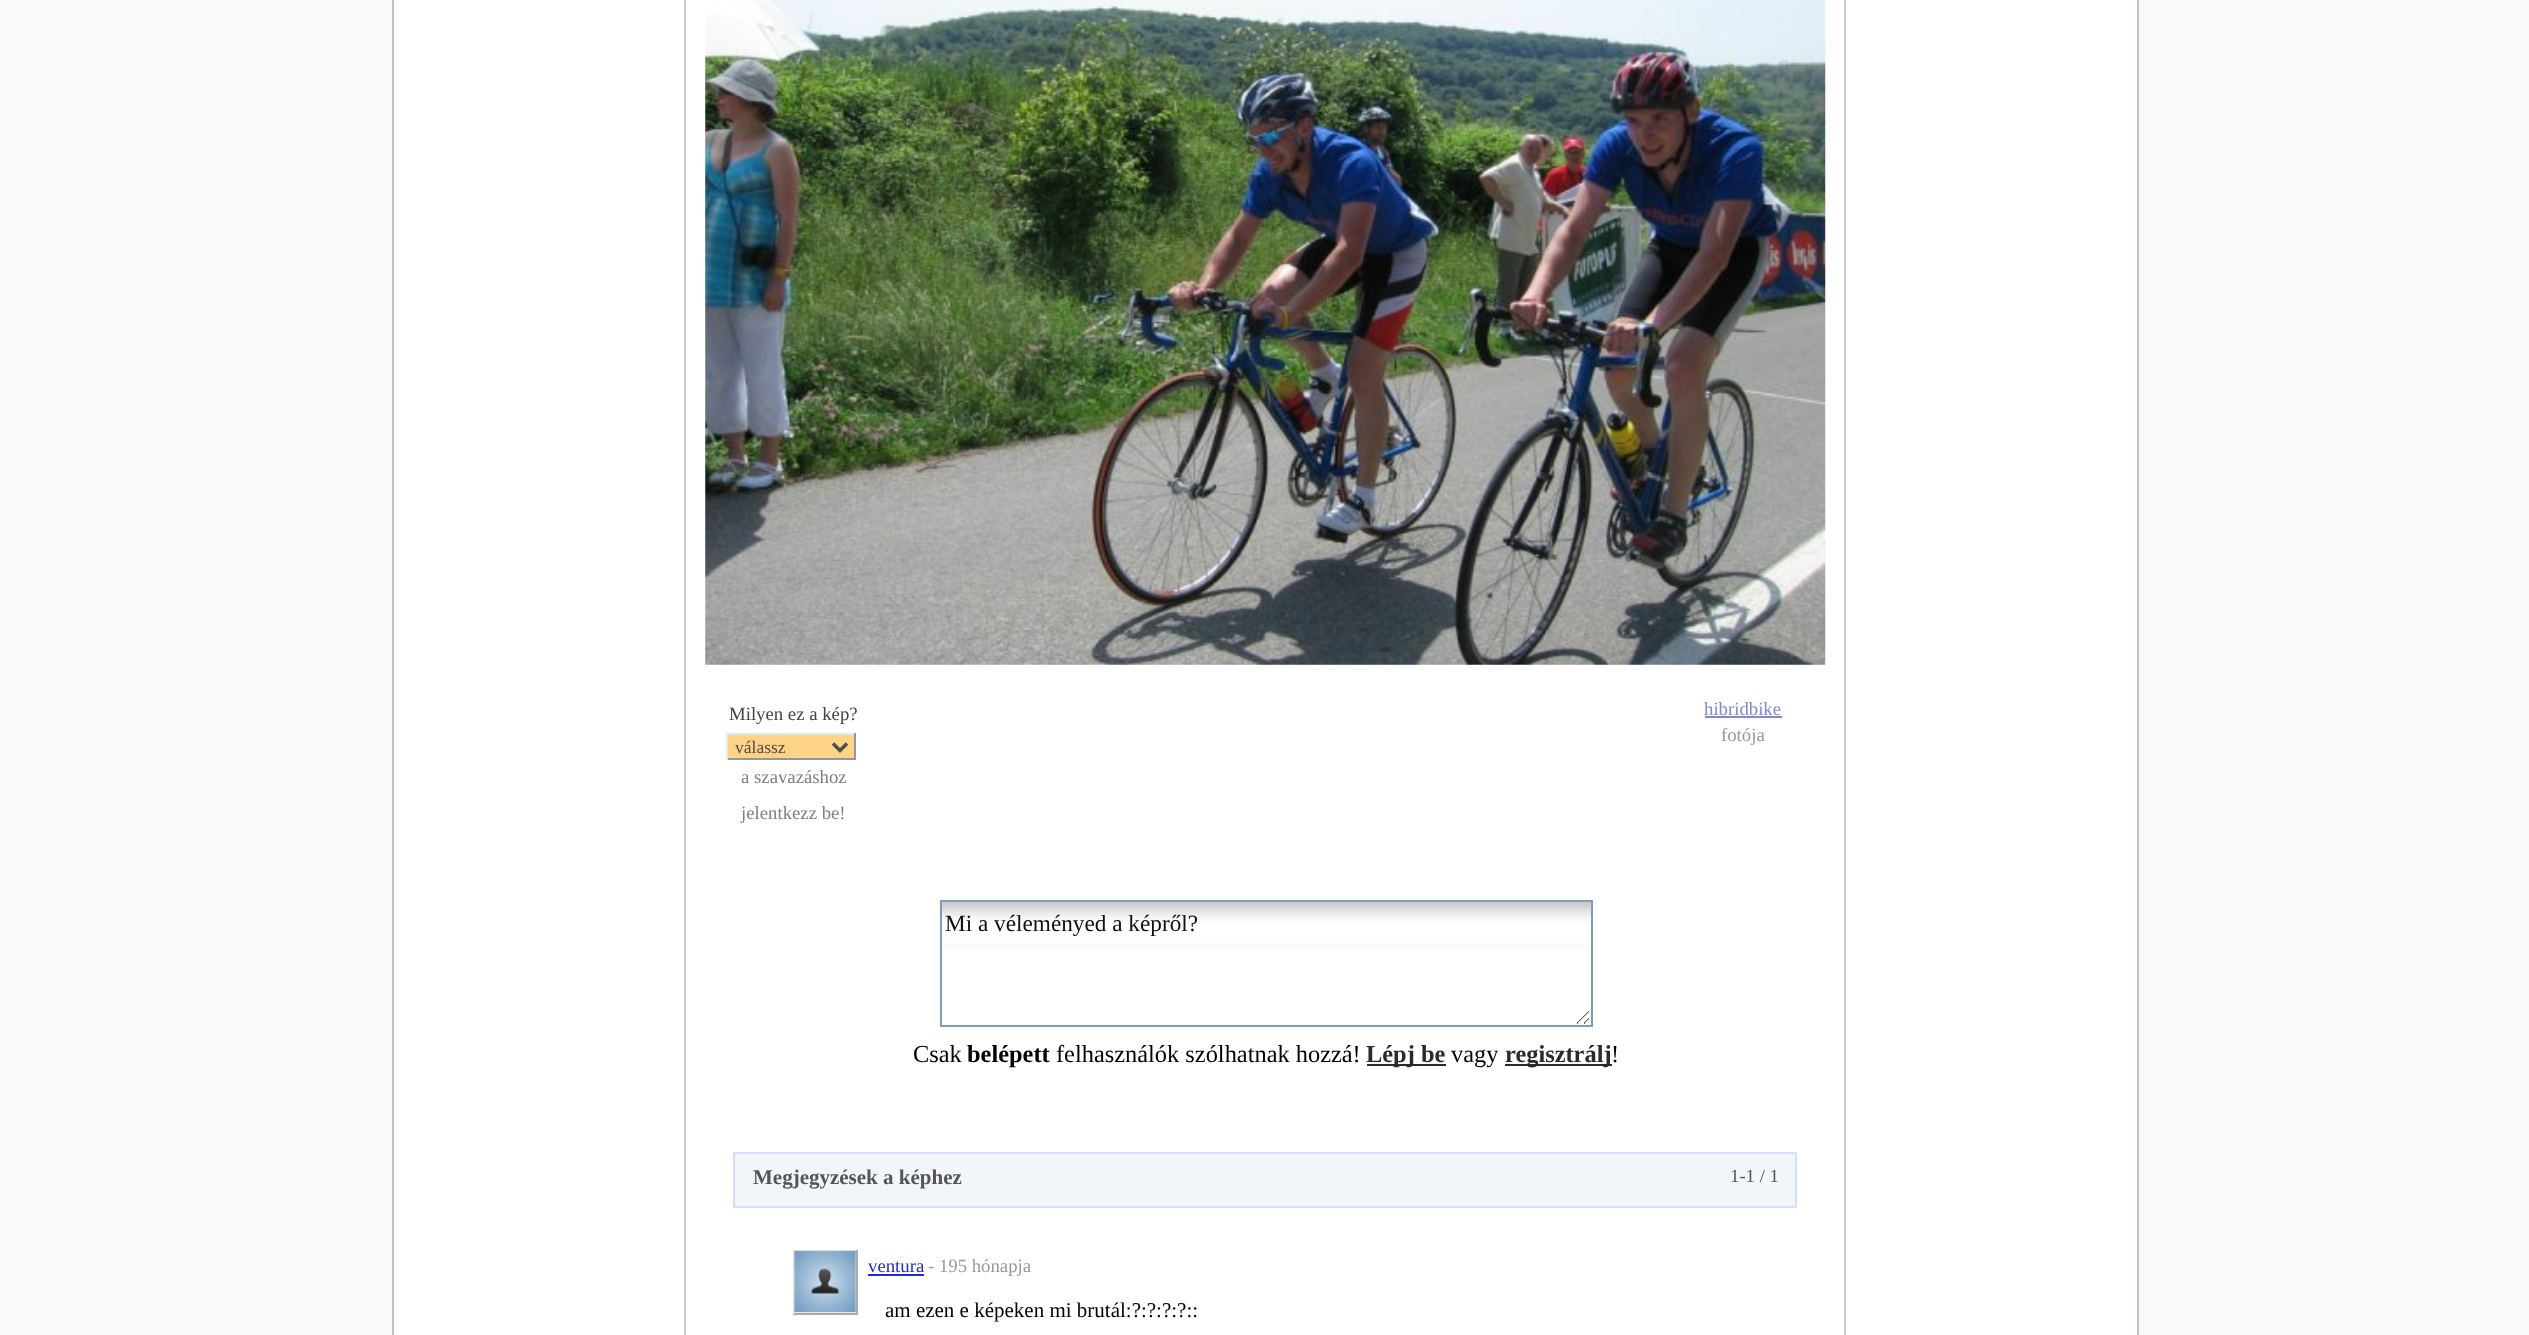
<!DOCTYPE html>
<meta charset="utf-8">
<style>body { margin: 0 } canvas { display: block }</style>
<canvas id="canvas" width="2529" height="1335"></canvas>
<script type="module">
  const canvas = document.getElementById("canvas");
  const ctx = canvas.getContext("2d");
  ctx.miterLimit = 4;
  ctx.fontKerning = "normal";
  async function loadImage(src) {
    const img = new Image();
    img.src = src;
    await img.decode();
    return img;
  }

  ctx.fillStyle = "#f9f9f9";
  ctx.fillRect(0, 0, 2529, 1335);
  ctx.fillStyle = "#ffffff";
  ctx.fillRect(394, 0, 1743, 1335);
  ctx.fillStyle = "#bec4cd";
  ctx.fillRect(2137, 0, 2, 1335);
  ctx.fillRect(392, 0, 2, 1335);
  ctx.strokeStyle = "#cccccc";
  ctx.lineWidth = 2;
  ctx.strokeRect(685, -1, 1160, 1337);
  ctx.drawImage(await loadImage("img1.png"), 705, 0, 1121, 665);
  ctx.font = "18.75px Liberation Serif";
  ctx.fillStyle = "#444444";
  ctx.fillText("Milyen ez a kép?", 729, 720);
  ctx.fillStyle = "#fed387";
  ctx.fillRect(728, 735, 126, 23);
  ctx.fillStyle = "#e0e8ff";
  ctx.fillRect(726, 733, 130, 2);
  ctx.fillStyle = "#8f97a1";
  ctx.fillRect(854, 733, 2, 27);
  ctx.fillRect(726, 758, 130, 2);
  ctx.fillStyle = "#e0e8ff";
  ctx.fillRect(726, 733, 2, 27);
  ctx.beginPath();
  ctx.moveTo(833, 743.5);
  ctx.lineTo(840, 750.5);
  ctx.lineTo(847, 743.5);
  ctx.strokeStyle = "#4d4d4d";
  ctx.lineWidth = 3.5;
  ctx.stroke();
  ctx.font = "17.5px Liberation Serif";
  ctx.fillStyle = "#4d4d4d";
  ctx.fillText("válassz", 735, 753);
  ctx.font = "18.75px Liberation Serif";
  ctx.fillStyle = "#808080";
  ctx.fillText("a szavazáshoz", 741, 783);
  ctx.fillText("jelentkezz be!", 741, 819);
  ctx.fillStyle = "#8089d0";
  ctx.fillText("hibridbike", 1704, 715);
  ctx.fillRect(1705, 716, 77, 2);
  ctx.fillStyle = "#999999";
  ctx.fillText("fotója", 1721, 741);
  ctx.drawImage(await loadImage("img2.png"), 939, 901, 652, 123);
  ctx.strokeStyle = "#7f9db9";
  ctx.lineWidth = 2;
  ctx.strokeRect(941, 901, 651, 125);
  ctx.font = "23.25px Liberation Serif";
  ctx.fillStyle = "#111111";
  ctx.fillText("Mi a véleményed a képről?", 945, 931);
  ctx.font = "24.4px Liberation Serif";
  ctx.fillStyle = "#000000";
  ctx.fillText("Csak", 913, 1062);
  ctx.font = "bold 24.4px Liberation Serif";
  ctx.fillText("belépett", 967, 1062);
  ctx.font = "24.4px Liberation Serif";
  ctx.fillText("felhasználók szólhatnak hozzá!", 1056, 1062);
  ctx.fillStyle = "#2a2a2a";
  ctx.fillRect(1367, 1064, 79, 2);
  ctx.font = "bold 24.4px Liberation Serif";
  ctx.fillText("Lépj be", 1366, 1062);
  ctx.font = "24.4px Liberation Serif";
  ctx.fillStyle = "#000000";
  ctx.fillText("vagy", 1451, 1062);
  ctx.fillStyle = "#2a2a2a";
  ctx.fillRect(1505, 1064, 107, 2);
  ctx.font = "bold 24.4px Liberation Serif";
  ctx.fillText("regisztrálj", 1505, 1062);
  ctx.font = "24.4px Liberation Serif";
  ctx.fillStyle = "#000000";
  ctx.fillText("!", 1611, 1062);
  ctx.fillStyle = "#f2f6fb";
  ctx.beginPath();
  ctx.rect(734, 1153, 1062, 54);
  ctx.fill();
  ctx.strokeStyle = "#d3deff";
  ctx.stroke();
  ctx.font = "bold 21px Liberation Serif";
  ctx.fillStyle = "#555555";
  ctx.fillText("Megjegyzések a képhez", 753, 1184);
  ctx.font = "18.75px Liberation Serif";
  ctx.fillText("1-1 / 1", 1730, 1182);
  ctx.fillStyle = "#dddddd";
  ctx.fillRect(793, 1250, 65, 2);
  ctx.fillStyle = "#aaaaaa";
  ctx.fillRect(856, 1250, 2, 64);
  ctx.fillRect(793, 1313, 65, 2);
  ctx.fillStyle = "#dddddd";
  ctx.fillRect(793, 1250, 2, 64);
  ctx.drawImage(await loadImage("img3.png"), 794, 1251, 62, 62);
  ctx.fillStyle = "#212dcb";
  ctx.fillText("ventura", 868, 1272);
  ctx.fillRect(868, 1274, 56, 2);
  ctx.fillStyle = "#999999";
  ctx.fillText("- 195 hónapja", 928, 1272);
  ctx.font = "21px Liberation Serif";
  ctx.fillStyle = "#000000";
  ctx.fillText("am ezen e képeken mi brutál:?:?:?:?::", 885, 1317);
</script>
